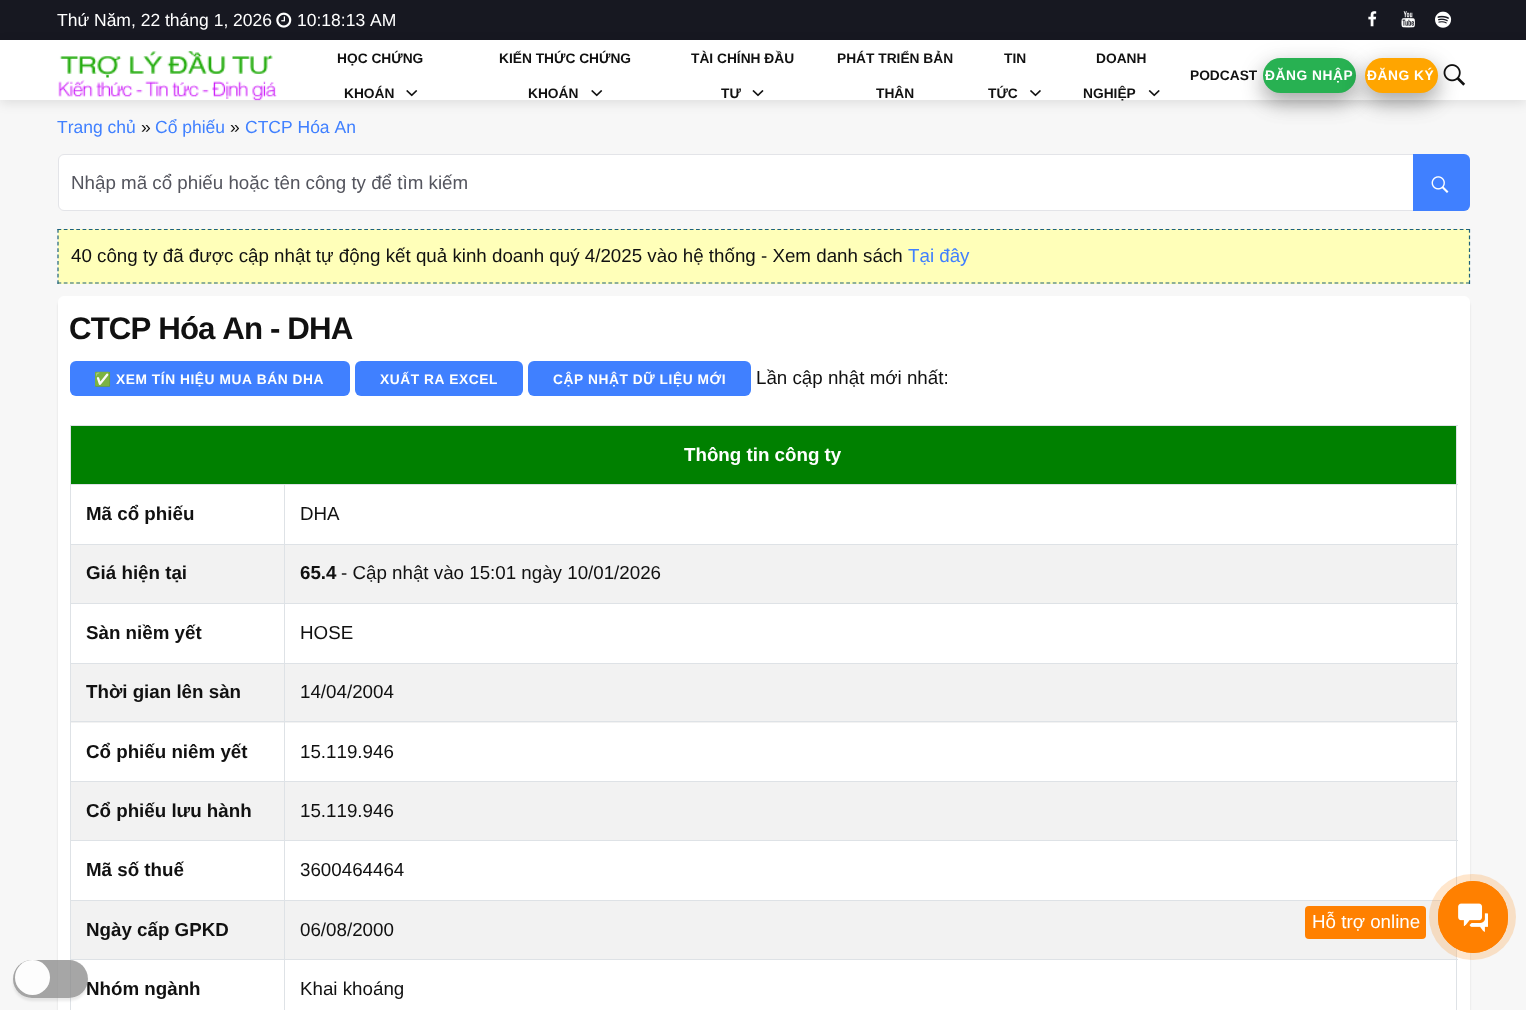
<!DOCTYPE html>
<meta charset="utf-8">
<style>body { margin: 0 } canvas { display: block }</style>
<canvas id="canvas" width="1526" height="1010"></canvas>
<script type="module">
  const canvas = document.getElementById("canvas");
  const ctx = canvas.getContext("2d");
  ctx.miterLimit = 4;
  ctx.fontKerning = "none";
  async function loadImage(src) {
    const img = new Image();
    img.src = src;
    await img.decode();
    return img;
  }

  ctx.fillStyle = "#f7f7f7";
  ctx.fillRect(0, 0, 1526, 1010);
  ctx.fillStyle = "#171821";
  ctx.fillRect(0, 0, 1526, 40);
  ctx.font = "17.5px Liberation Sans";
  ctx.fillStyle = "#ffffff";
  ctx.fillText("Thứ Năm, 22 tháng 1, 2026", 57, 26);
  ctx.drawImage(await loadImage("img1.png"), 276, 12, 16, 16);
  ctx.fillText("10:18:13 AM", 297, 26);
  ctx.drawImage(await loadImage("img2.png"), 1368, 11, 9, 16);
  ctx.drawImage(await loadImage("img3.png"), 1401, 11, 14, 17);
  ctx.drawImage(await loadImage("img4.png"), 1435, 11, 17, 17);
  ctx.fillStyle = "rgba(0, 0, 0, 0.1)";
  ctx.filter = "blur(6px)";
  ctx.beginPath();
  ctx.rect(0, 43, 1526, 60);
  ctx.fill();
  ctx.filter = "none";
  ctx.fillStyle = "#ffffff";
  ctx.fillRect(0, 40, 1526, 60);
  ctx.drawImage(await loadImage("img5.png"), 58, 51, 219, 50);
  ctx.font = "bold 13.75px Liberation Sans";
  ctx.fillStyle = "#111111";
  ctx.fillText("HỌC CHỨNG", 337, 63);
  ctx.fillText("KHOÁN", 344, 98);
  ctx.drawImage(await loadImage("img6.png"), 406, 90, 12, 7);
  ctx.fillText("KIẾN THỨC CHỨNG", 499, 63);
  ctx.fillText("KHOÁN", 528, 98);
  ctx.drawImage(await loadImage("img6.png"), 591, 90, 12, 7);
  ctx.fillText("TÀI CHÍNH ĐẦU", 691, 63);
  ctx.fillText("TƯ", 721, 98);
  ctx.drawImage(await loadImage("img7.png"), 752, 90, 12, 7);
  ctx.fillText("PHÁT TRIỂN BẢN", 837, 63);
  ctx.fillText("THÂN", 876, 98);
  ctx.fillText("TIN", 1004, 63);
  ctx.fillText("TỨC", 988, 98);
  ctx.drawImage(await loadImage("img8.png"), 1030, 90, 11, 7);
  ctx.fillText("DOANH", 1096, 63);
  ctx.fillText("NGHIỆP", 1083, 98);
  ctx.drawImage(await loadImage("img9.png"), 1148, 90, 12, 7);
  ctx.fillText("PODCAST", 1190, 80);
  ctx.fillStyle = "rgba(0, 0, 0, 0.19)";
  ctx.filter = "blur(12.5px)";
  ctx.beginPath();
  ctx.roundRect(1263, 65, 93, 35, 17.5);
  ctx.fill();
  ctx.filter = "none";
  ctx.fillStyle = "rgba(0, 0, 0, 0.2)";
  ctx.filter = "blur(10px)";
  ctx.beginPath();
  ctx.roundRect(1263, 68, 93, 35, 17.5);
  ctx.fill();
  ctx.filter = "none";
  ctx.fillStyle = "#28b152";
  ctx.beginPath();
  ctx.roundRect(1263, 58, 93, 35, 17.5);
  ctx.fill();
  ctx.letterSpacing = "0.55px";
  ctx.fillStyle = "#ffffff";
  ctx.fillText("ĐĂNG NHẬP", 1265, 80);
  ctx.drawImage(await loadImage("img10.png"), 1443, 64, 23, 22);
  ctx.fillStyle = "rgba(0, 0, 0, 0.19)";
  ctx.filter = "blur(12.5px)";
  ctx.beginPath();
  ctx.roundRect(1365, 65, 73, 35, 17.5);
  ctx.fill();
  ctx.filter = "none";
  ctx.fillStyle = "rgba(0, 0, 0, 0.2)";
  ctx.filter = "blur(10px)";
  ctx.beginPath();
  ctx.roundRect(1365, 68, 73, 35, 17.5);
  ctx.fill();
  ctx.filter = "none";
  ctx.fillStyle = "#ffa500";
  ctx.beginPath();
  ctx.roundRect(1365, 58, 73, 35, 17.5);
  ctx.fill();
  ctx.fillStyle = "#ffffff";
  ctx.fillText("ĐĂNG KÝ", 1367, 80);
  ctx.letterSpacing = "0px";
  ctx.font = "17.5px Liberation Sans";
  ctx.fillStyle = "#4080ff";
  ctx.fillText("Trang chủ", 57, 133);
  ctx.fillStyle = "#111111";
  ctx.fillText("»", 141, 133);
  ctx.fillStyle = "#4080ff";
  ctx.fillText("Cổ phiếu", 155, 133);
  ctx.fillStyle = "#111111";
  ctx.fillText("»", 230, 133);
  ctx.fillStyle = "#4080ff";
  ctx.fillText("CTCP Hóa An", 245, 133);
  ctx.fillStyle = "#ffffff";
  ctx.beginPath();
  ctx.roundRect(58.5, 154.5, 1411, 56, 5.5);
  ctx.fill();
  ctx.strokeStyle = "#e3e4e8";
  ctx.stroke();
  ctx.font = "18.75px Liberation Sans";
  ctx.fillStyle = "#54555e";
  ctx.fillText("Nhập mã cổ phiếu hoặc tên công ty để tìm kiếm", 71, 189);
  ctx.fillStyle = "#4080ff";
  ctx.beginPath();
  ctx.roundRect(1413, 154, 57, 57, [0, 6, 6, 0]);
  ctx.fill();
  ctx.drawImage(await loadImage("img11.png"), 1431, 176, 18, 17);
  ctx.fillStyle = "#ffffb9";
  ctx.fillRect(58, 229, 1412, 55);
  ctx.beginPath();
  ctx.moveTo(57.5, 229.5);
  ctx.lineTo(1470, 229.5);
  ctx.strokeStyle = "#1c617b";
  ctx.lineWidth = 1.2;
  ctx.setLineDash([3.75, 2.51]);
  ctx.stroke();
  ctx.beginPath();
  ctx.moveTo(1469.5, 229);
  ctx.lineTo(1469.5, 284);
  ctx.setLineDash([3.75, 2.65]);
  ctx.stroke();
  ctx.beginPath();
  ctx.moveTo(57.5, 283);
  ctx.lineTo(1470, 283);
  ctx.setLineDash([3.75, 2.51]);
  ctx.stroke();
  ctx.beginPath();
  ctx.moveTo(58, 229);
  ctx.lineTo(58, 284);
  ctx.setLineDash([3.75, 2.65]);
  ctx.stroke();
  ctx.fillStyle = "#111111";
  ctx.fillText("40 công ty đã được cập nhật tự động kết quả kinh doanh quý 4/2025 vào hệ thống - Xem danh sách", 71, 262);
  ctx.fillStyle = "#4080ff";
  ctx.fillText("Tại đây", 908, 262);
  ctx.fillStyle = "rgba(0, 0, 0, 0.1)";
  ctx.filter = "blur(1px)";
  ctx.beginPath();
  ctx.roundRect(58, 300, 1412, 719, 6);
  ctx.fill();
  ctx.filter = "none";
  ctx.fillStyle = "#ffffff";
  ctx.beginPath();
  ctx.roundRect(58, 296, 1412, 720, 6);
  ctx.fill();
  ctx.letterSpacing = "-0.9px";
  ctx.font = "bold 31.25px Liberation Sans";
  ctx.fillStyle = "#111111";
  ctx.fillText("CTCP Hóa An - DHA", 69, 339);
  ctx.fillStyle = "#4080ff";
  ctx.beginPath();
  ctx.roundRect(70, 361, 280, 35, 6);
  ctx.fill();
  ctx.letterSpacing = "0.55px";
  ctx.font = "bold 13.75px Noto Color Emoji";
  ctx.fillStyle = "#ffffff";
  ctx.fillText("✅", 94, 384);
  ctx.font = "bold 13.75px Liberation Sans";
  ctx.fillText("XEM TÍN HIỆU MUA BÁN DHA", 116, 384);
  ctx.fillStyle = "#4080ff";
  ctx.beginPath();
  ctx.roundRect(355, 361, 168, 35, 6);
  ctx.fill();
  ctx.fillStyle = "#ffffff";
  ctx.fillText("XUẤT RA EXCEL", 380, 384);
  ctx.fillStyle = "#4080ff";
  ctx.beginPath();
  ctx.roundRect(528, 361, 223, 35, 6);
  ctx.fill();
  ctx.fillStyle = "#ffffff";
  ctx.fillText("CẬP NHẬT DỮ LIỆU MỚI", 553, 384);
  ctx.letterSpacing = "0px";
  ctx.font = "18.75px Liberation Sans";
  ctx.fillStyle = "#111111";
  ctx.fillText("Lần cập nhật mới nhất:", 756, 384);
  ctx.fillStyle = "#dee2e6";
  ctx.fillRect(70, 425, 1388, 1);
  ctx.fillRect(1456, 425, 1, 585);
  ctx.fillRect(70, 425, 1, 585);
  ctx.fillStyle = "#008000";
  ctx.fillRect(71, 426, 1385, 58);
  ctx.font = "bold 18.75px Liberation Sans";
  ctx.fillStyle = "#ffffff";
  ctx.fillText("Thông tin công ty", 684, 461);
  ctx.fillStyle = "#dee2e6";
  ctx.fillRect(284, 484, 1174, 1);
  ctx.fillRect(284, 544, 1174, 1);
  ctx.fillStyle = "#f2f2f2";
  ctx.fillRect(71, 545, 1385, 58);
  ctx.fillStyle = "#dee2e6";
  ctx.fillRect(284, 603, 1174, 1);
  ctx.fillRect(284, 663, 1174, 1);
  ctx.fillStyle = "#f2f2f2";
  ctx.fillRect(71, 664, 1385, 59);
  ctx.fillStyle = "#dee2e6";
  ctx.fillRect(284, 721, 1174, 1);
  ctx.fillStyle = "#f2f2f2";
  ctx.fillRect(71, 782, 1385, 58);
  ctx.fillStyle = "#dee2e6";
  ctx.fillRect(284, 781, 1174, 1);
  ctx.fillRect(284, 840, 1174, 1);
  ctx.fillRect(284, 900, 1158, 1);
  ctx.fillStyle = "#f2f2f2";
  ctx.fillRect(71, 901, 1385, 58);
  ctx.fillStyle = "#dee2e6";
  ctx.fillRect(284, 959, 1174, 1);
  ctx.fillRect(284, 959, 1, 51);
  ctx.fillRect(70, 959, 215, 1);
  ctx.fillRect(284, 900, 1, 60);
  ctx.fillRect(70, 900, 215, 1);
  ctx.fillRect(284, 840, 1, 61);
  ctx.fillRect(70, 840, 215, 1);
  ctx.fillRect(284, 781, 1, 60);
  ctx.fillRect(70, 781, 215, 1);
  ctx.fillRect(284, 721, 1, 62);
  ctx.fillRect(70, 721, 215, 1);
  ctx.fillRect(284, 663, 1, 60);
  ctx.fillRect(70, 663, 215, 1);
  ctx.fillRect(284, 603, 1, 61);
  ctx.fillRect(70, 603, 215, 1);
  ctx.fillRect(284, 544, 1, 60);
  ctx.fillRect(70, 544, 215, 1);
  ctx.fillRect(284, 484, 1, 61);
  ctx.fillRect(70, 484, 215, 1);
  ctx.fillStyle = "#111111";
  ctx.fillText("Mã cổ phiếu", 86, 520);
  ctx.font = "18.75px Liberation Sans";
  ctx.fillText("DHA", 300, 520);
  ctx.font = "bold 18.75px Liberation Sans";
  ctx.fillText("Giá hiện tại", 86, 579);
  ctx.fillText("65.4", 300, 579);
  ctx.font = "18.75px Liberation Sans";
  ctx.fillText("- Cập nhật vào 15:01 ngày 10/01/2026", 341, 579);
  ctx.font = "bold 18.75px Liberation Sans";
  ctx.fillText("Sàn niềm yết", 86, 639);
  ctx.font = "18.75px Liberation Sans";
  ctx.fillText("HOSE", 300, 639);
  ctx.font = "bold 18.75px Liberation Sans";
  ctx.fillText("Thời gian lên sàn", 86, 698);
  ctx.font = "18.75px Liberation Sans";
  ctx.fillText("14/04/2004", 300, 698);
  ctx.font = "bold 18.75px Liberation Sans";
  ctx.fillText("Cổ phiếu niêm yết", 86, 758);
  ctx.font = "18.75px Liberation Sans";
  ctx.fillText("15.119.946", 300, 758);
  ctx.font = "bold 18.75px Liberation Sans";
  ctx.fillText("Cổ phiếu lưu hành", 86, 817);
  ctx.font = "18.75px Liberation Sans";
  ctx.fillText("15.119.946", 300, 817);
  ctx.font = "bold 18.75px Liberation Sans";
  ctx.fillText("Mã số thuế", 86, 876);
  ctx.font = "18.75px Liberation Sans";
  ctx.fillText("3600464464", 300, 876);
  ctx.font = "bold 18.75px Liberation Sans";
  ctx.fillText("Ngày cấp GPKD", 86, 936);
  ctx.font = "18.75px Liberation Sans";
  ctx.fillText("06/08/2000", 300, 936);
  ctx.font = "bold 18.75px Liberation Sans";
  ctx.fillText("Nhóm ngành", 86, 995);
  ctx.font = "18.75px Liberation Sans";
  ctx.fillText("Khai khoáng", 300, 995);
  ctx.fillStyle = "#ff8000";
  ctx.beginPath();
  ctx.roundRect(1305, 906, 121, 33, 4);
  ctx.fill();
  ctx.fillStyle = "#ffffff";
  ctx.fillText("Hỗ trợ online", 1312, 928);
  ctx.fillStyle = "rgba(255, 128, 0, 0.2)";
  ctx.beginPath();
  ctx.roundRect(1429, 874, 87, 86, 43);
  ctx.fill();
  ctx.beginPath();
  ctx.roundRect(1438.5, 881.5, 69, 71, 34.5);
  ctx.strokeStyle = "#ff8000";
  ctx.lineWidth = 1;
  ctx.setLineDash([]);
  ctx.stroke();
  ctx.fillStyle = "#ff8000";
  ctx.beginPath();
  ctx.roundRect(1438, 881, 70, 72, 35);
  ctx.fill();
  ctx.drawImage(await loadImage("img12.png"), 1458, 903, 30, 29);
  ctx.save();
  ctx.beginPath();
  ctx.moveTo(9, 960);
  ctx.lineTo(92, 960);
  ctx.lineTo(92, 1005);
  ctx.lineTo(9, 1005);
  ctx.closePath();
  ctx.moveTo(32, 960);
  ctx.lineTo(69, 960);
  ctx.bezierCurveTo(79.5, 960, 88, 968.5, 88, 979);
  ctx.bezierCurveTo(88, 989.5, 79.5, 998, 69, 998);
  ctx.lineTo(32, 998);
  ctx.bezierCurveTo(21.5, 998, 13, 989.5, 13, 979);
  ctx.bezierCurveTo(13, 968.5, 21.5, 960, 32, 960);
  ctx.closePath();
  ctx.clip("evenodd");
  ctx.fillStyle = "rgba(0, 0, 0, 0.08)";
  ctx.filter = "blur(1px)";
  ctx.beginPath();
  ctx.roundRect(13, 964, 75, 37, 18.5);
  ctx.fill();
  ctx.filter = "none";
  ctx.restore();
  ctx.fillStyle = "rgba(136, 136, 136, 0.75)";
  ctx.beginPath();
  ctx.roundRect(13, 960, 75, 38, 19);
  ctx.fill();
  ctx.fillStyle = "#fdfdfd";
  ctx.beginPath();
  ctx.arc(32.5, 977.5, 17.5, 0, Math.PI * 2);
  ctx.fill();
</script>
